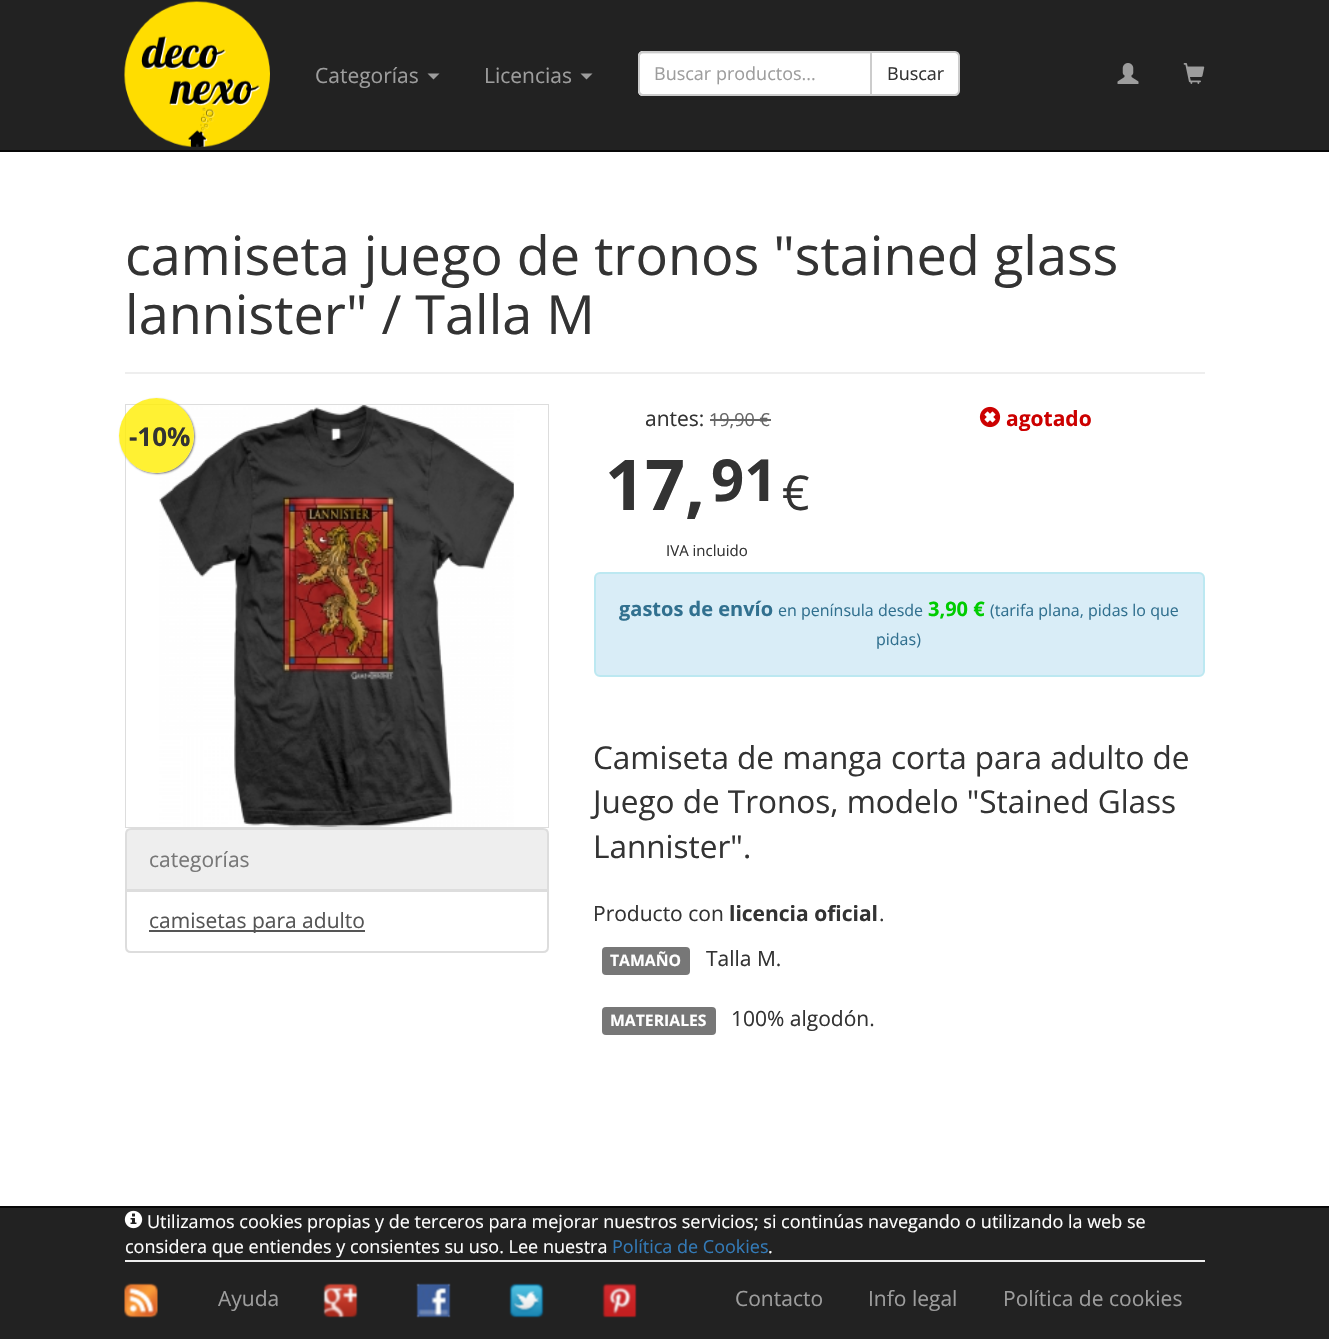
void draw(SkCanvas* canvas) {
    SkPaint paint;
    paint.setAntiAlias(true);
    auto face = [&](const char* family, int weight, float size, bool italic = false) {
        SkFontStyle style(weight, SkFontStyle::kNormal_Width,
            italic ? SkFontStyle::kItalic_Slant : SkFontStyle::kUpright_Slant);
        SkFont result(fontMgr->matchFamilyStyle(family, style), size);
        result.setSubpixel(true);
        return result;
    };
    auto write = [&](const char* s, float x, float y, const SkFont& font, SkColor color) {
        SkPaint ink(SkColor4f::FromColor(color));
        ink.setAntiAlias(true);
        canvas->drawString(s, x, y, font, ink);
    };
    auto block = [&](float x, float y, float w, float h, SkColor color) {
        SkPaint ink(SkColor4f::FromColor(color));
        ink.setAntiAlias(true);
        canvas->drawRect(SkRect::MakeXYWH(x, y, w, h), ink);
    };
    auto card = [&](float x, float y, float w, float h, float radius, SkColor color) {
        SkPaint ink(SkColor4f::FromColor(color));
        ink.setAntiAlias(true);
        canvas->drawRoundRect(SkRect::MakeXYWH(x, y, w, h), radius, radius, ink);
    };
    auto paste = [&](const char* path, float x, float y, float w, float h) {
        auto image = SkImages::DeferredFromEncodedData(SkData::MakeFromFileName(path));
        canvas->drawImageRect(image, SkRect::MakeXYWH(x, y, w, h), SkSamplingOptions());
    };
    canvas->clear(SK_ColorWHITE);
    block(0, 0, 1329, 150, SkColorSetRGB(34, 34, 34));
    block(0, 150, 1329, 2, SkColorSetRGB(8, 8, 8));
    paste("pic1.png", 124, 1, 146, 146);
    auto kFont1 = face("Open Sans", 400, 21);
    write("Categorías", 315, 83, kFont1, SkColorSetRGB(157, 157, 157));
    paint.setColor(SkColorSetRGB(157, 157, 157));
    canvas->drawPath(SkPathBuilder().moveTo(427.5f, 73.5f).lineTo(439.5f, 73.5f).lineTo(433.5f, 79.5f).close().detach(), paint);
    write("Licencias", 484, 83, kFont1, SkColorSetRGB(157, 157, 157));
    canvas->drawPath(SkPathBuilder().moveTo(580.5f, 73.5f).lineTo(592.5f, 73.5f).lineTo(586.5f, 79.5f).close().detach(), paint);
    paint.setColor(SK_ColorWHITE);
    canvas->drawPath(SkPathBuilder().moveTo(871, 52).lineTo(955, 52).cubicTo(957, 52, 959, 54, 959, 56).lineTo(959, 91).cubicTo(959, 93, 957, 95, 955, 95).lineTo(871, 95).close().detach(), paint);
    paint.setStyle(SkPaint::kStroke_Style);
    paint.setStrokeWidth(2);
    paint.setColor(SkColorSetRGB(204, 204, 204));
    canvas->drawPath(SkPathBuilder().moveTo(871, 52).lineTo(955, 52).cubicTo(957, 52, 959, 54, 959, 56).lineTo(959, 91).cubicTo(959, 93, 957, 95, 955, 95).lineTo(871, 95).close().detach(), paint);
    paint.setStyle(SkPaint::kFill_Style);
    paint.setColor(SK_ColorWHITE);
    canvas->drawPath(SkPathBuilder().moveTo(643, 51).lineTo(872, 51).lineTo(872, 96).lineTo(643, 96).cubicTo(640, 96, 638, 94, 638, 91).lineTo(638, 56).cubicTo(638, 53, 640, 51, 643, 51).close().detach(), paint);
    paint.setColor(SkColorSetRGB(236, 236, 236));
    canvas->drawPath(SkPathBuilder().moveTo(642, 54).lineTo(870, 54).lineTo(870, 53).lineTo(642, 53).cubicTo(640, 53, 639, 55, 639, 57).cubicTo(639, 55, 640, 54, 642, 54).close().detach(), paint);
    paint.setStyle(SkPaint::kStroke_Style);
    paint.setColor(SkColorSetRGB(204, 204, 204));
    canvas->drawPath(SkPathBuilder().moveTo(643, 52).lineTo(871, 52).lineTo(871, 95).lineTo(643, 95).cubicTo(641, 95, 639, 93, 639, 91).lineTo(639, 56).cubicTo(639, 54, 641, 52, 643, 52).close().detach(), paint);
    auto kFont2 = face("Open Sans", 400, 18);
    write("Buscar productos...", 654, 80, kFont2, SkColorSetRGB(157, 157, 157));
    write("Buscar", 887, 80, kFont2, SkColorSetRGB(51, 51, 51));
    paste("pic2.png", 1117, 63, 22, 21);
    paste("pic3.png", 1183, 63, 22, 21);
    block(125, 372, 1080, 2, SkColorSetRGB(238, 238, 238));
    auto kFont3 = face("Open Sans", 400, 54);
    write("camiseta juego de tronos \"stained glass", 125, 275, kFont3, SkColorSetRGB(51, 51, 51));
    write("lannister\" / Talla M", 125, 334, kFont3, SkColorSetRGB(51, 51, 51));
    paint.setColor(SkColorSetRGB(221, 221, 221));
    canvas->drawRect(SkRect::MakeXYWH(126, 405, 422, 422), paint);
    paste("pic4.png", 126, 405, 422, 422);
    canvas->save();
    canvas->clipPath(SkPathBuilder(SkPathFillType::kEvenOdd).moveTo(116, 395).lineTo(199, 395).lineTo(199, 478).lineTo(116, 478).close().moveTo(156.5f, 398).cubicTo(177, 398, 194, 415, 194, 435.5f).cubicTo(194, 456, 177, 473, 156.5f, 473).cubicTo(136, 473, 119, 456, 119, 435.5f).cubicTo(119, 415, 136, 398, 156.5f, 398).close().detach(), true);
    paint.setStyle(SkPaint::kFill_Style);
    paint.setColor(SkColorSetARGB(204, 94, 94, 94));
    paint.setMaskFilter(SkMaskFilter::MakeBlur(kNormal_SkBlurStyle, 1));
    canvas->drawRoundRect(SkRect::MakeXYWH(120, 399, 75, 75), 37.5f, 37.5f, paint);
    paint.setMaskFilter(nullptr);
    canvas->restore();
    paint.setColor(SkColorSetARGB(204, 255, 238, 0));
    canvas->drawCircle(156.5f, 435.5f, 37.5f, paint);
    auto kFont4 = face("Open Sans", 700, 26);
    write("-10%", 129, 446, kFont4, SkColorSetRGB(51, 51, 51));
    paint.setColor(SkColorSetRGB(238, 238, 238));
    canvas->drawPath(SkPathBuilder().moveTo(131, 829).lineTo(543, 829).cubicTo(546, 829, 548, 831, 548, 834).lineTo(548, 890).lineTo(126, 890).lineTo(126, 834).cubicTo(126, 831, 128, 829, 131, 829).close().detach(), paint);
    paint.setStyle(SkPaint::kStroke_Style);
    paint.setColor(SkColorSetRGB(221, 221, 221));
    canvas->drawPath(SkPathBuilder().moveTo(131, 829).lineTo(543, 829).cubicTo(546, 829, 548, 831, 548, 834).lineTo(548, 890).lineTo(126, 890).lineTo(126, 834).cubicTo(126, 831, 128, 829, 131, 829).close().detach(), paint);
    write("categorías", 149, 867, kFont1, SkColorSetRGB(119, 119, 119));
    paint.setStyle(SkPaint::kFill_Style);
    paint.setColor(SK_ColorWHITE);
    canvas->drawPath(SkPathBuilder().moveTo(126, 891).lineTo(548, 891).lineTo(548, 947).cubicTo(548, 950, 546, 952, 543, 952).lineTo(131, 952).cubicTo(128, 952, 126, 950, 126, 947).close().detach(), paint);
    paint.setStyle(SkPaint::kStroke_Style);
    paint.setColor(SkColorSetRGB(221, 221, 221));
    canvas->drawPath(SkPathBuilder().moveTo(126, 891).lineTo(548, 891).lineTo(548, 947).cubicTo(548, 950, 546, 952, 543, 952).lineTo(131, 952).cubicTo(128, 952, 126, 950, 126, 947).close().detach(), paint);
    block(149, 930, 216, 2, SkColorSetRGB(85, 85, 85));
    write("camisetas para adulto", 149, 928, kFont1, SkColorSetRGB(85, 85, 85));
    write("antes:", 645, 426, kFont1, SkColorSetRGB(51, 51, 51));
    write("19,90 €", 709, 426, kFont2, SkColorSetRGB(102, 102, 102));
    block(710, 419, 61, 2, SkColorSetRGB(102, 102, 102));
    auto kFont5 = face("Open Sans", 700, 70);
    write("17,", 605, 510, kFont5, SkColorSetRGB(51, 51, 51));
    auto kFont6 = face("Open Sans", 700, 58);
    write("91", 711, 501, kFont6, SkColorSetRGB(51, 51, 51));
    auto kFont7 = face("Open Sans", 400, 48);
    write("€", 782, 510, kFont7, SkColorSetRGB(51, 51, 51));
    auto kFont8 = face("Open Sans", 400, 15);
    write("IVA incluido", 666, 556, kFont8, SkColorSetRGB(51, 51, 51));
    paste("pic5.png", 979, 406, 22, 22);
    auto kFont9 = face("Open Sans", 700, 21);
    write("agotado", 1006, 426, kFont9, SkColorSetRGB(204, 0, 0));
    paint.setStyle(SkPaint::kFill_Style);
    paint.setColor(SkColorSetRGB(217, 237, 247));
    canvas->drawRoundRect(SkRect::MakeXYWH(595, 573, 609, 103), 5, 5, paint);
    paint.setStyle(SkPaint::kStroke_Style);
    paint.setColor(SkColorSetRGB(188, 232, 241));
    canvas->drawRoundRect(SkRect::MakeXYWH(595, 573, 609, 103), 5, 5, paint);
    auto kFont10 = face("Open Sans", 700, 20);
    write("gastos de envío", 619, 616, kFont10, SkColorSetRGB(49, 112, 143));
    auto kFont11 = face("Open Sans", 400, 16);
    write("en península desde", 778, 616, kFont11, SkColorSetRGB(49, 112, 143));
    write("3,90 €", 928, 616, kFont10, SkColorSetRGB(0, 204, 0));
    write("(tarifa plana, pidas lo que", 990, 616, kFont11, SkColorSetRGB(49, 112, 143));
    write("pidas)", 876, 645, kFont11, SkColorSetRGB(49, 112, 143));
    auto kFont12 = face("Open Sans", 400, 31.5f);
    write("Camiseta de manga corta para adulto de", 593, 769, kFont12, SkColorSetRGB(51, 51, 51));
    write("Juego de Tronos, modelo \"Stained Glass", 593, 813, kFont12, SkColorSetRGB(51, 51, 51));
    write("Lannister\".", 593, 858, kFont12, SkColorSetRGB(51, 51, 51));
    write("Producto con", 593, 921, kFont1, SkColorSetRGB(51, 51, 51));
    write("licencia oficial", 729, 921, kFont9, SkColorSetRGB(51, 51, 51));
    write(".", 879, 921, kFont1, SkColorSetRGB(51, 51, 51));
    card(602, 947, 88, 28, 4, SkColorSetRGB(119, 119, 119));
    auto kFont13 = face("Open Sans", 700, 15.75f);
    write("TAMAÑO", 610, 966, kFont13, SK_ColorWHITE);
    write("Talla M.", 706, 966, kFont1, SkColorSetRGB(51, 51, 51));
    card(602, 1007, 114, 28, 4, SkColorSetRGB(119, 119, 119));
    write("MATERIALES", 610, 1026, kFont13, SK_ColorWHITE);
    write("100% algodón.", 731, 1026, kFont1, SkColorSetRGB(51, 51, 51));
    block(0, 1208, 1329, 131, SkColorSetRGB(34, 34, 34));
    block(0, 1206, 1329, 2, SkColorSetRGB(8, 8, 8));
    block(125, 1260, 1080, 2, SkColorSetRGB(238, 238, 238));
    paste("pic6.png", 124, 1210, 19, 19);
    write("Utilizamos cookies propias y de terceros para mejorar nuestros servicios; si continúas navegando o utilizando la web se", 147, 1228, kFont2, SK_ColorWHITE);
    write("considera que entiendes y consientes su uso. Lee nuestra", 125, 1253, kFont2, SK_ColorWHITE);
    write("Política de Cookies", 612, 1253, kFont2, SkColorSetRGB(51, 122, 183));
    write(".", 768, 1253, kFont2, SK_ColorWHITE);
    paste("pic7.png", 124, 1283, 34, 35);
    write("Ayuda", 218, 1306, kFont1, SkColorSetRGB(157, 157, 157));
    paste("pic8.png", 323, 1283, 35, 35);
    paste("pic9.png", 416, 1283, 35, 35);
    paste("pic10.png", 509, 1283, 35, 35);
    paste("pic11.png", 602, 1283, 35, 35);
    write("Contacto", 735, 1306, kFont1, SkColorSetRGB(157, 157, 157));
    write("Info legal", 868, 1306, kFont1, SkColorSetRGB(157, 157, 157));
    write("Política de cookies", 1003, 1306, kFont1, SkColorSetRGB(157, 157, 157));
}
